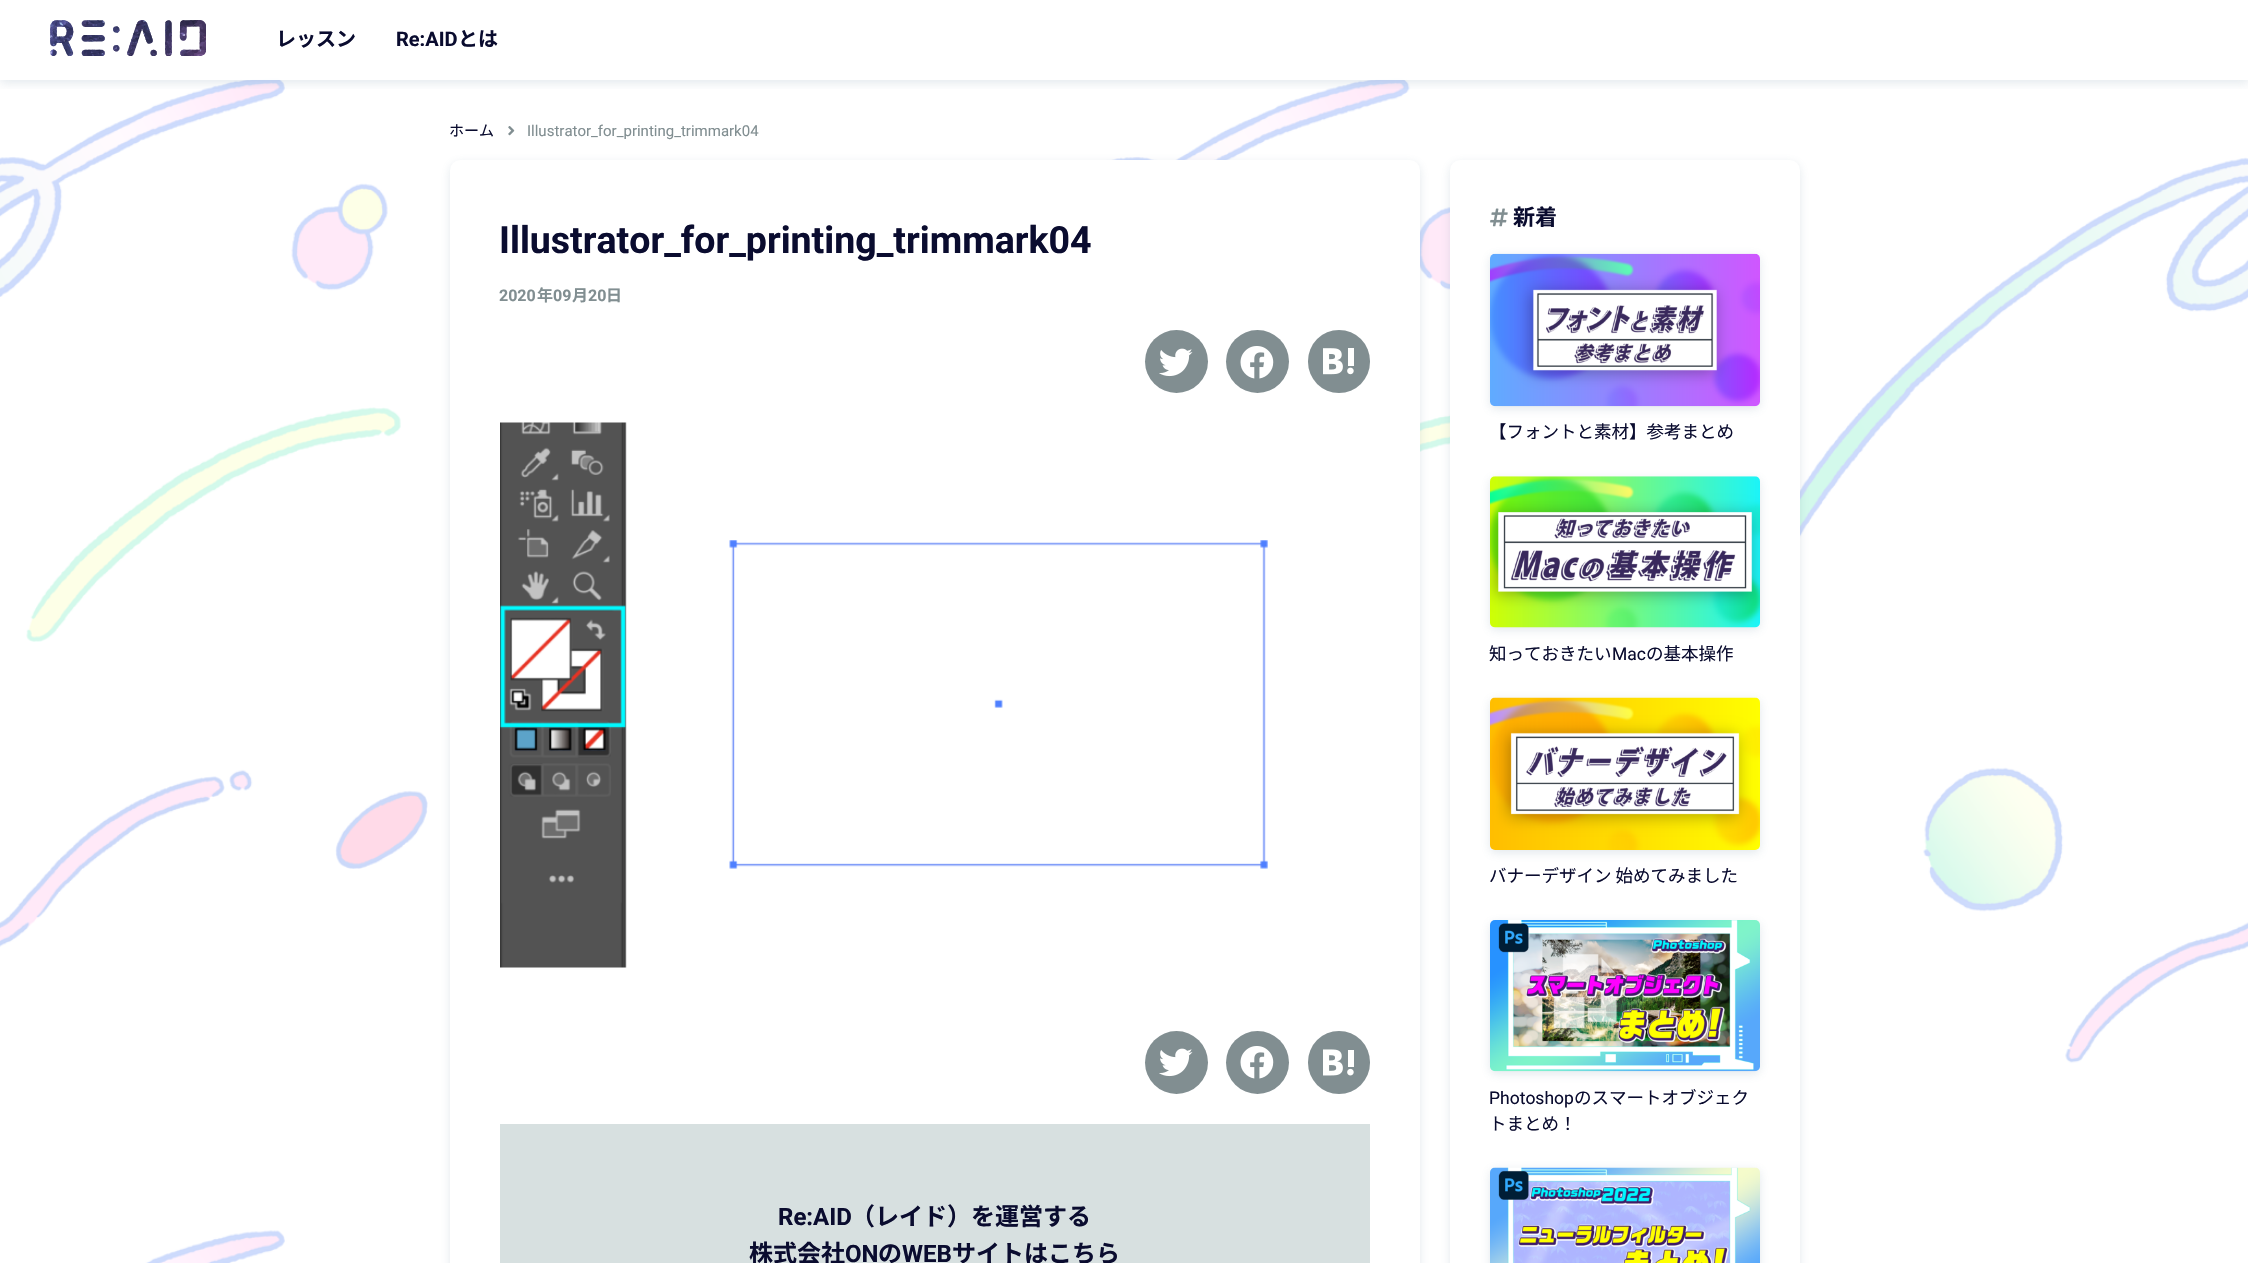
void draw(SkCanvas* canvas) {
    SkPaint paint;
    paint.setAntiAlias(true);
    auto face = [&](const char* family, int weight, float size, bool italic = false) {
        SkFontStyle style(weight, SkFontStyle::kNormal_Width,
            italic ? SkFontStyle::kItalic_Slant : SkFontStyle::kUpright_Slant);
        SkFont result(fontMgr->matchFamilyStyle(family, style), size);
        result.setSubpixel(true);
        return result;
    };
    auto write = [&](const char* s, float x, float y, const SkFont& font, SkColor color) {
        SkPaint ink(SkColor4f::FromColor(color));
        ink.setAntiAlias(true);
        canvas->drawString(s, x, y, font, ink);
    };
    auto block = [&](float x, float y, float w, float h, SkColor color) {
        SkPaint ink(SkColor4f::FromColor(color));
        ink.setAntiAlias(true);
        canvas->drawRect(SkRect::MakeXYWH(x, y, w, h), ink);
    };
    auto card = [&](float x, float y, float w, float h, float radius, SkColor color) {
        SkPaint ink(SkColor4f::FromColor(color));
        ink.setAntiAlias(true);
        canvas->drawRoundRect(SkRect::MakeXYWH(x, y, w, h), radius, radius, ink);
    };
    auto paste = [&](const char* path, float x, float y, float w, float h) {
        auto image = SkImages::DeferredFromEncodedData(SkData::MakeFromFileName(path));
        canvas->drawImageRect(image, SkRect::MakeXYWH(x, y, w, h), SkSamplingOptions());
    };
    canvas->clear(SK_ColorWHITE);
    paste("pic1.png", 0, 77, 2248, 1186);
    canvas->save();
    canvas->clipRect(SkRect::MakeXYWH(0, 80, 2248, 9));
    paint.setColor(SkColorSetARGB(46, 99, 133, 153));
    paint.setMaskFilter(SkMaskFilter::MakeBlur(kNormal_SkBlurStyle, 5));
    canvas->drawRect(SkRect::MakeXYWH(0, 3, 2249, 80), paint);
    paint.setMaskFilter(nullptr);
    canvas->restore();
    block(242, 77, 1164, 3, SkColorSetARGB(242, 255, 255, 255));
    paste("pic2.png", 50, 20, 156, 36);
    auto kFont1 = face("Noto Sans JP", 700, 20);
    write("レッスン", 276, 46, kFont1, SkColorSetRGB(10, 12, 47));
    auto kFont2 = face("Roboto", 700, 20);
    write("Re:AID", 396, 46, kFont2, SkColorSetRGB(10, 12, 47));
    write("とは", 458, 46, kFont1, SkColorSetRGB(10, 12, 47));
    auto kFont3 = face("Noto Sans JP", 400, 15);
    write("ホーム", 449, 136, kFont3, SkColorSetRGB(10, 12, 47));
    paste("pic3.png", 508, 126, 7, 10);
    auto kFont4 = face("Roboto", 400, 15);
    write("Illustrator_for_printing_trimmark04", 527, 136, kFont4, SkColorSetRGB(129, 142, 145));
    paint.setMaskFilter(SkMaskFilter::MakeBlur(kNormal_SkBlurStyle, 5));
    canvas->drawRoundRect(SkRect::MakeXYWH(450, 163, 970, 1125), 10, 10, paint);
    paint.setMaskFilter(nullptr);
    card(450, 160, 970, 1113, 10, SK_ColorWHITE);
    auto kFont5 = face("Roboto", 700, 37.5f);
    write("Illustrator_for_printing_trimmark04", 499, 253, kFont5, SkColorSetRGB(10, 12, 47));
    auto kFont6 = face("Roboto", 700, 16);
    write("2020", 499, 301, kFont6, SkColorSetRGB(129, 142, 145));
    auto kFont7 = face("Noto Sans JP", 700, 16);
    write("年", 537, 301, kFont7, SkColorSetRGB(129, 142, 145));
    write("09", 553, 301, kFont6, SkColorSetRGB(129, 142, 145));
    write("月", 572, 301, kFont7, SkColorSetRGB(129, 142, 145));
    write("20", 588, 301, kFont6, SkColorSetRGB(129, 142, 145));
    write("日", 606, 301, kFont7, SkColorSetRGB(129, 142, 145));
    paint.setColor(SkColorSetRGB(129, 142, 145));
    canvas->drawCircle(1176.5f, 361.5f, 31.5f, paint);
    paste("pic4.png", 1159, 348, 34, 29);
    canvas->drawCircle(1257.5f, 361.5f, 31.5f, paint);
    paste("pic5.png", 1240, 346, 34, 33);
    card(1308, 330, 62, 63, 31, SkColorSetRGB(129, 142, 145));
    paste("pic6.png", 1323, 348, 31, 27);
    paste("pic7.png", 500, 422, 768, 546);
    canvas->drawCircle(1176.5f, 1062.5f, 31.5f, paint);
    paste("pic4.png", 1159, 1048, 34, 29);
    canvas->drawCircle(1257.5f, 1062.5f, 31.5f, paint);
    paste("pic5.png", 1240, 1046, 34, 33);
    card(1308, 1031, 62, 63, 31, SkColorSetRGB(129, 142, 145));
    paste("pic8.png", 1323, 1049, 31, 27);
    block(500, 1124, 870, 139, SkColorSetRGB(215, 224, 224));
    auto kFont8 = face("Roboto", 700, 24);
    write("Re:AID", 778, 1225, kFont8, SkColorSetRGB(10, 12, 47));
    auto kFont9 = face("Noto Sans JP", 700, 24);
    write("（レイド）を運営する", 851, 1225, kFont9, SkColorSetRGB(10, 12, 47));
    write("株式会社", 749, 1262, kFont9, SkColorSetRGB(10, 12, 47));
    write("ON", 845, 1262, kFont8, SkColorSetRGB(10, 12, 47));
    write("の", 878, 1262, kFont9, SkColorSetRGB(10, 12, 47));
    write("WEB", 902, 1262, kFont8, SkColorSetRGB(10, 12, 47));
    write("サイトはこちら", 952, 1262, kFont9, SkColorSetRGB(10, 12, 47));
    paint.setColor(SkColorSetARGB(46, 99, 133, 153));
    paint.setMaskFilter(SkMaskFilter::MakeBlur(kNormal_SkBlurStyle, 5));
    canvas->drawRoundRect(SkRect::MakeXYWH(1450, 163, 350, 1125), 10, 10, paint);
    paint.setMaskFilter(nullptr);
    card(1450, 160, 350, 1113, 10, SK_ColorWHITE);
    paste("pic9.png", 1490, 208, 18, 19);
    auto kFont10 = face("Noto Sans JP", 700, 22);
    write("新着", 1513, 225, kFont10, SkColorSetRGB(10, 12, 47));
    paint.setMaskFilter(SkMaskFilter::MakeBlur(kNormal_SkBlurStyle, 5));
    canvas->drawRoundRect(SkRect::MakeXYWH(1490, 256, 270, 153), 5, 5, paint);
    paint.setMaskFilter(nullptr);
    paste("pic10.png", 1490, 253, 270, 154);
    auto kFont11 = face("Noto Sans JP", 400, 17.5f);
    write("【フォントと素材】参考まとめ", 1489, 438, kFont11, SkColorSetRGB(10, 12, 47));
    paint.setMaskFilter(SkMaskFilter::MakeBlur(kNormal_SkBlurStyle, 5));
    canvas->drawRoundRect(SkRect::MakeXYWH(1490, 479, 270, 151), 5, 5, paint);
    paint.setMaskFilter(nullptr);
    paste("pic11.png", 1490, 476, 270, 152);
    write("知っておきたい", 1489, 660, kFont11, SkColorSetRGB(10, 12, 47));
    auto kFont12 = face("Roboto", 400, 17.5f);
    write("Mac", 1612, 660, kFont12, SkColorSetRGB(10, 12, 47));
    write("の基本操作", 1646, 660, kFont11, SkColorSetRGB(10, 12, 47));
    paint.setMaskFilter(SkMaskFilter::MakeBlur(kNormal_SkBlurStyle, 5));
    canvas->drawRoundRect(SkRect::MakeXYWH(1490, 700, 270, 153), 5, 5, paint);
    paint.setMaskFilter(nullptr);
    paste("pic12.png", 1490, 697, 270, 153);
    write("バナーデザイン 始めてみました", 1489, 882, kFont11, SkColorSetRGB(10, 12, 47));
    paint.setMaskFilter(SkMaskFilter::MakeBlur(kNormal_SkBlurStyle, 5));
    canvas->drawRoundRect(SkRect::MakeXYWH(1490, 923, 270, 151), 5, 5, paint);
    paint.setMaskFilter(nullptr);
    paste("pic13.png", 1490, 920, 270, 152);
    write("Photoshop", 1489, 1104, kFont12, SkColorSetRGB(10, 12, 47));
    write("のスマートオブジェク", 1574, 1104, kFont11, SkColorSetRGB(10, 12, 47));
    write("トまとめ！", 1489, 1130, kFont11, SkColorSetRGB(10, 12, 47));
    paint.setMaskFilter(SkMaskFilter::MakeBlur(kNormal_SkBlurStyle, 5));
    canvas->drawRoundRect(SkRect::MakeXYWH(1490, 1170, 270, 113), 5, 5, paint);
    paint.setMaskFilter(nullptr);
    paste("pic14.png", 1490, 1167, 270, 96);
}
